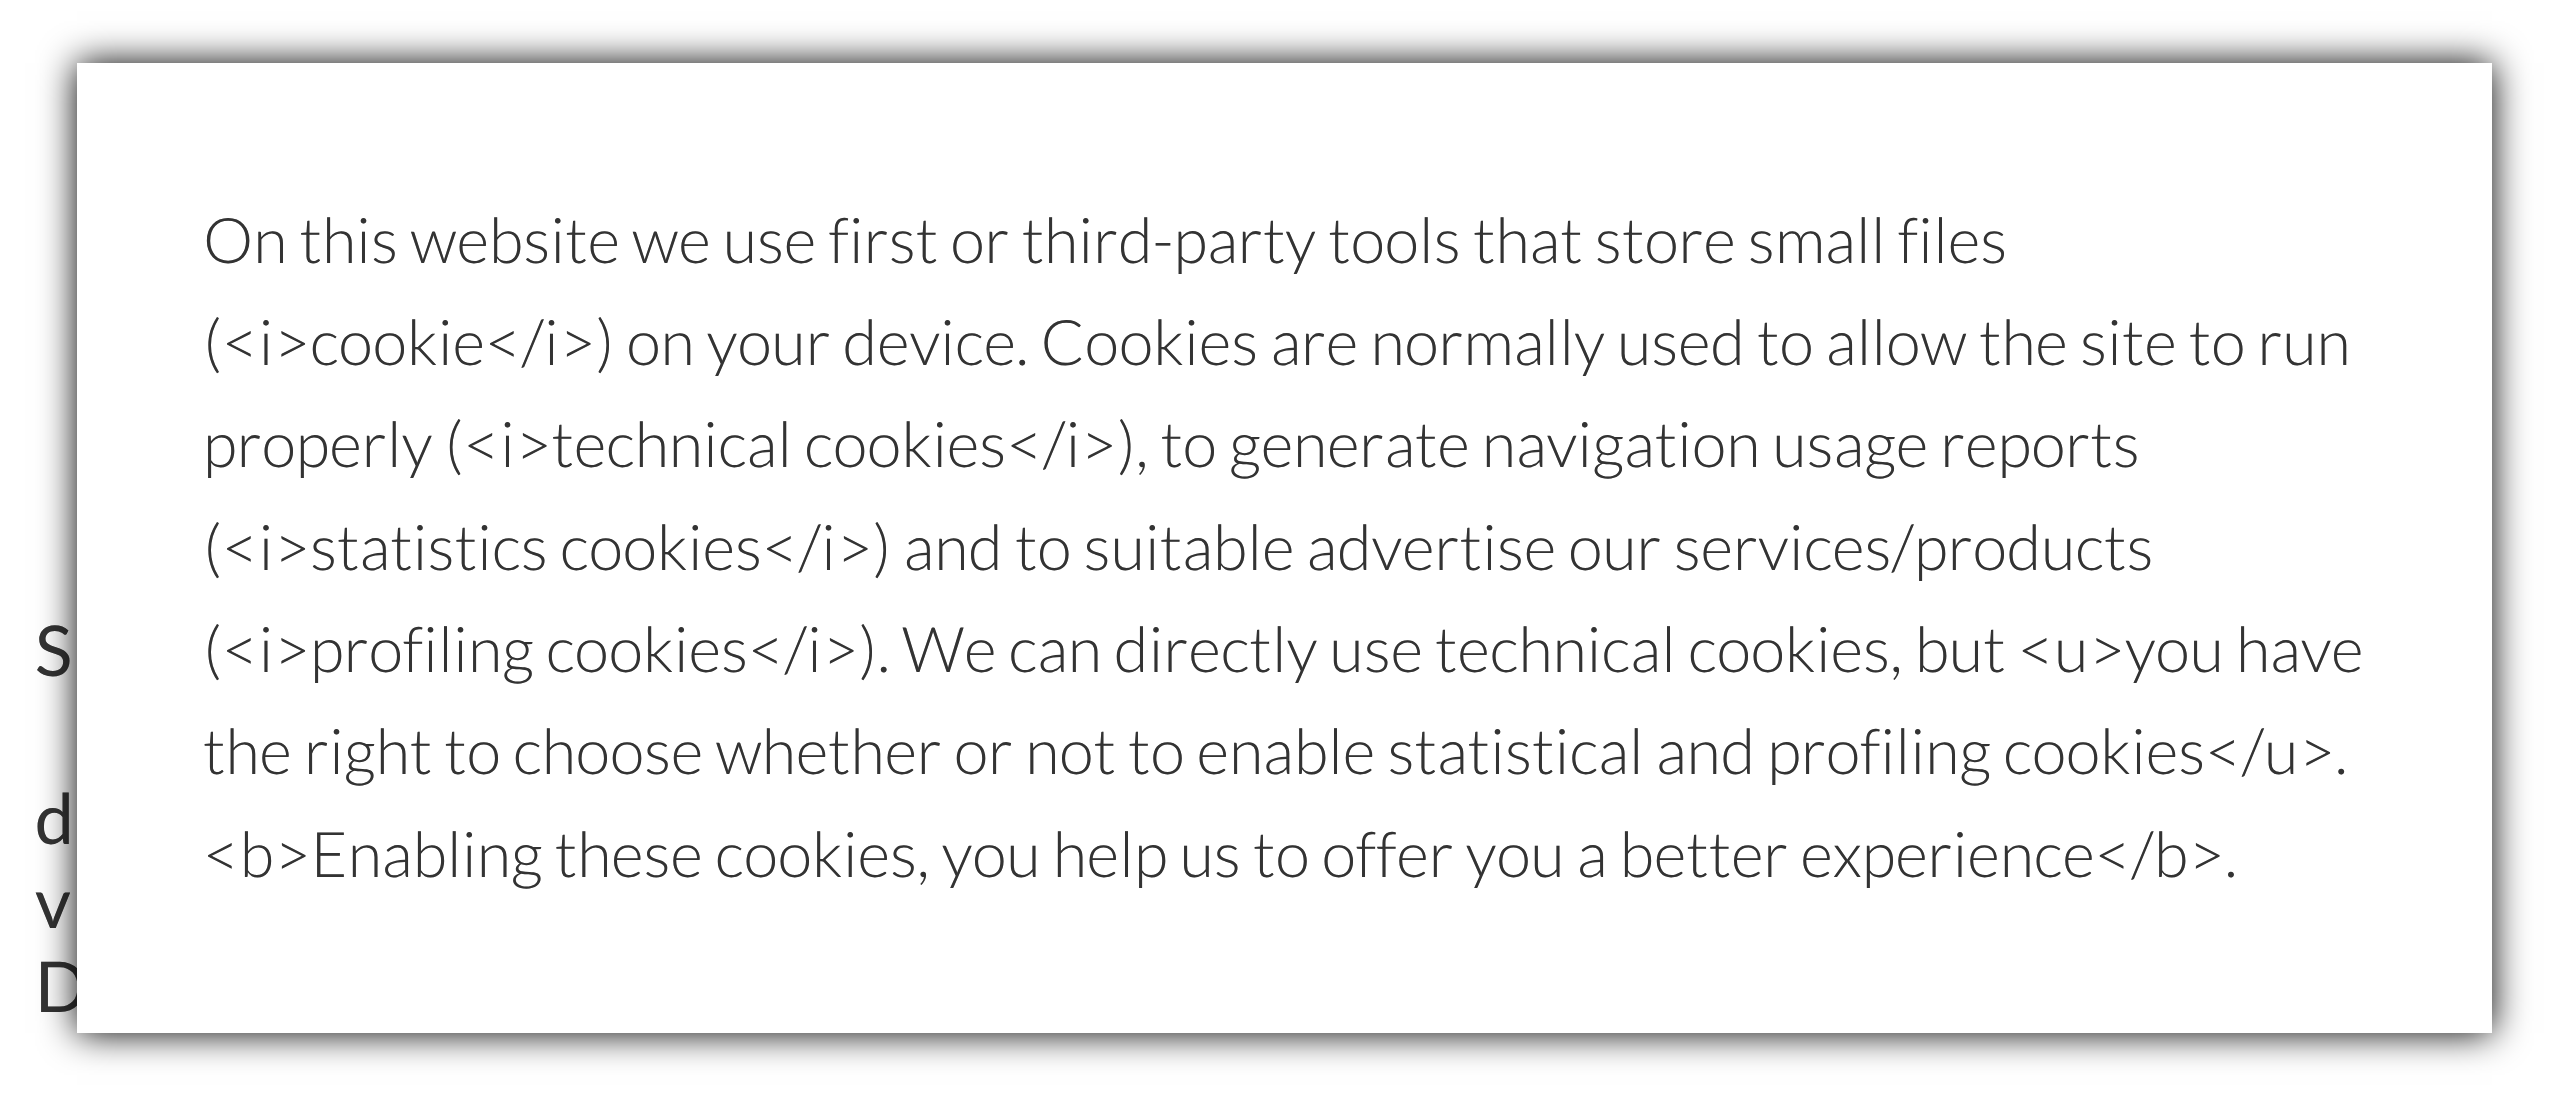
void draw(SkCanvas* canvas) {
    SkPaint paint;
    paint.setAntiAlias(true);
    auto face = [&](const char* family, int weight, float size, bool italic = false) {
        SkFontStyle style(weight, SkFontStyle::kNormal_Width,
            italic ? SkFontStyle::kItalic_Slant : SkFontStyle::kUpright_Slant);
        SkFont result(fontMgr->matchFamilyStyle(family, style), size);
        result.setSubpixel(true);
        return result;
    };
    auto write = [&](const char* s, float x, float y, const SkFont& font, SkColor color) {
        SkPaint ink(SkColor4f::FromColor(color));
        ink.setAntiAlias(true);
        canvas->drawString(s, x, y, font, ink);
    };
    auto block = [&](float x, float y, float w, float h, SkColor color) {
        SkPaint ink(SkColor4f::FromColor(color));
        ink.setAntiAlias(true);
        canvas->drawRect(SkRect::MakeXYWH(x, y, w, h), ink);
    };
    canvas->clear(SK_ColorWHITE);
    auto kFont1 = face("Lato", 400, 70);
    write("S", 35, 676, kFont1, SkColorSetRGB(51, 51, 51));
    write("d", 35, 844, kFont1, SkColorSetRGB(51, 51, 51));
    write("v", 35, 928, kFont1, SkColorSetRGB(51, 51, 51));
    write("D", 35, 1012, kFont1, SkColorSetRGB(51, 51, 51));
    paint.setColor(SK_ColorBLACK);
    paint.setMaskFilter(SkMaskFilter::MakeBlur(kNormal_SkBlurStyle, 17.5f));
    canvas->drawRect(SkRect::MakeXYWH(77, 63, 2415, 970), paint);
    paint.setMaskFilter(nullptr);
    block(77, 63, 2415, 970, SK_ColorWHITE);
    auto kFont2 = face("Lato", 300, 63);
    write("On this website we use first or third-party tools that store small files", 203, 263, kFont2, SkColorSetRGB(51, 51, 51));
    write("(<i>cookie</i>) on your device. Cookies are normally used to allow the site to run", 203, 365, kFont2, SkColorSetRGB(51, 51, 51));
    write("properly (<i>technical cookies</i>), to generate navigation usage reports", 203, 467, kFont2, SkColorSetRGB(51, 51, 51));
    write("(<i>statistics cookies</i>) and to suitable advertise our services/products", 203, 570, kFont2, SkColorSetRGB(51, 51, 51));
    write("(<i>profiling cookies</i>). We can directly use technical cookies, but <u>you have", 203, 672, kFont2, SkColorSetRGB(51, 51, 51));
    write("the right to choose whether or not to enable statistical and profiling cookies</u>.", 203, 774, kFont2, SkColorSetRGB(51, 51, 51));
    write("<b>Enabling these cookies, you help us to offer you a better experience</b>.", 203, 877, kFont2, SkColorSetRGB(51, 51, 51));
}
